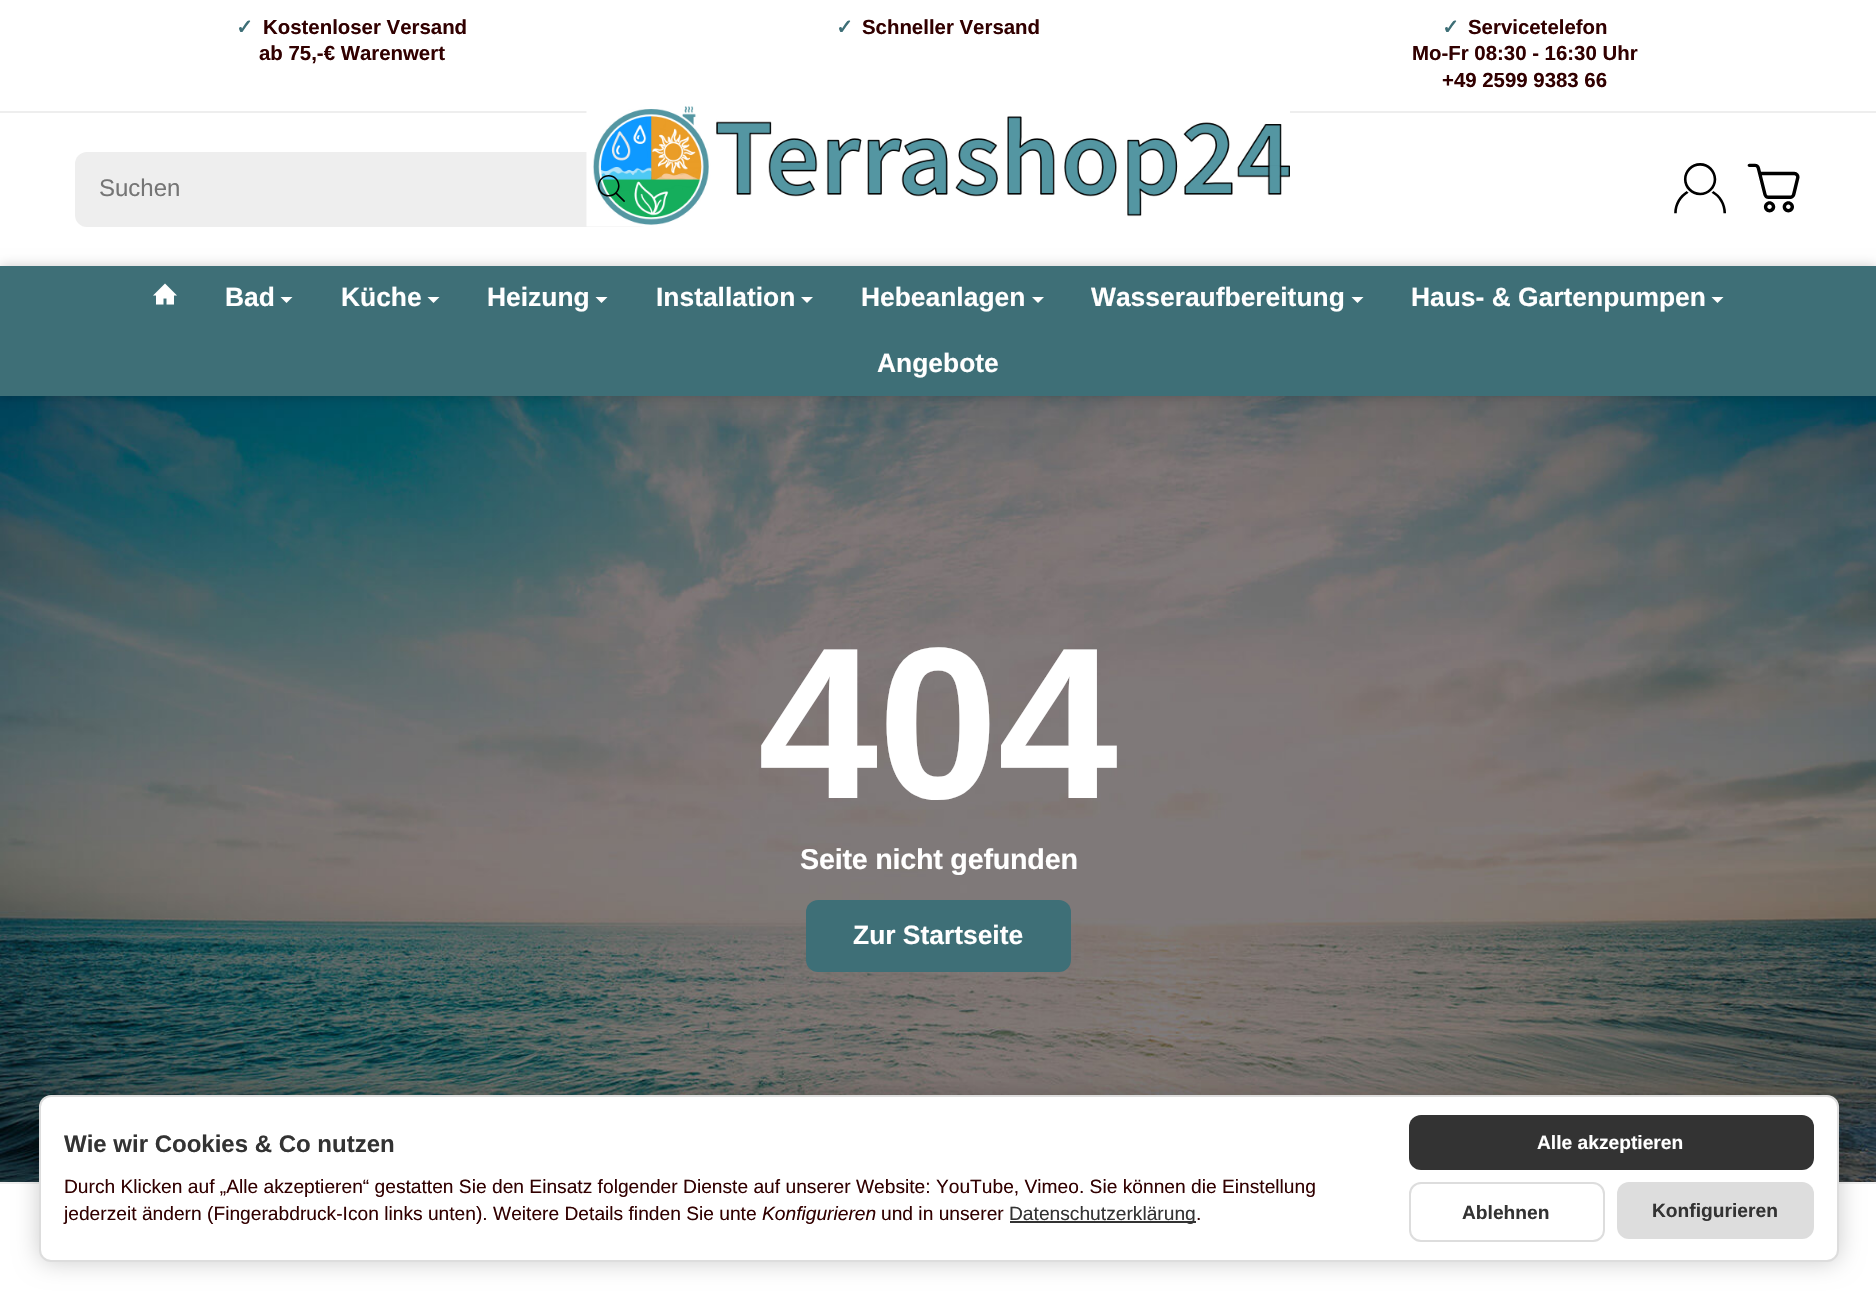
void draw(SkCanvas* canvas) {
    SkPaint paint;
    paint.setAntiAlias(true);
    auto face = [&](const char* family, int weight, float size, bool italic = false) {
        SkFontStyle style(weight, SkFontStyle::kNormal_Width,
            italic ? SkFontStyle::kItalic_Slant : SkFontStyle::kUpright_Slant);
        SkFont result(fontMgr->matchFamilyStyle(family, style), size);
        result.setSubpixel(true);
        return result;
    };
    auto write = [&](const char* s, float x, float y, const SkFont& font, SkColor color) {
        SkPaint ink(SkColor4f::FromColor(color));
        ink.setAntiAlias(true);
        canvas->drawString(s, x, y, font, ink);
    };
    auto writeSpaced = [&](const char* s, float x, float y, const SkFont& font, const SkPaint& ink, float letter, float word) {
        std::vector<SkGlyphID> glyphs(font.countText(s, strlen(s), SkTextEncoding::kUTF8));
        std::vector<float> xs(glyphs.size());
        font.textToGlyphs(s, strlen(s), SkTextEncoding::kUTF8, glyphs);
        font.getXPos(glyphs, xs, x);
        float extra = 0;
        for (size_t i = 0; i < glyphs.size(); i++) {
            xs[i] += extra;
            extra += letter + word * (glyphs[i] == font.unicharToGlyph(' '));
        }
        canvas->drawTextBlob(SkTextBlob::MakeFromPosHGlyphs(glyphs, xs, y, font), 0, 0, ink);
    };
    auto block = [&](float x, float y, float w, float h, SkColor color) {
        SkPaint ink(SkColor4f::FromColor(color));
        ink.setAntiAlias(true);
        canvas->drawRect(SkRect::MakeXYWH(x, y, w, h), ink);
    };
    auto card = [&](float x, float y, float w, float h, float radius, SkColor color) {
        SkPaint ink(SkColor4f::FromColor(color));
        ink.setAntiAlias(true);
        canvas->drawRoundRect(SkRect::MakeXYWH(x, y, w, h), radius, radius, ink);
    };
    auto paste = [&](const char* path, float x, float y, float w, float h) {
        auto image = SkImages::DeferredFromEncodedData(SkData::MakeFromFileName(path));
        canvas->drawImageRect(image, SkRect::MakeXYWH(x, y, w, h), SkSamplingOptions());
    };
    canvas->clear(SK_ColorWHITE);
    auto kFont1 = face("DejaVu Sans", 700, 20.4f);
    write("✓", 236, 34, kFont1, SkColorSetRGB(62, 111, 119));
    auto kFont2 = face("Liberation Sans", 700, 20.4f);
    write("Kostenloser Versand", 263, 34, kFont2, SkColorSetRGB(49, 0, 0));
    write("ab 75,-€ Warenwert", 259, 60, kFont2, SkColorSetRGB(49, 0, 0));
    write("✓", 836, 34, kFont1, SkColorSetRGB(62, 111, 119));
    write("Schneller Versand", 862, 34, kFont2, SkColorSetRGB(49, 0, 0));
    write("✓", 1442, 34, kFont1, SkColorSetRGB(62, 111, 119));
    write("Servicetelefon", 1468, 34, kFont2, SkColorSetRGB(49, 0, 0));
    write("Mo-Fr 08:30 - 16:30 Uhr", 1412, 60, kFont2, SkColorSetRGB(49, 0, 0));
    write("+49 2599 9383 66", 1442, 87, kFont2, SkColorSetRGB(49, 0, 0));
    block(0, 111, 1876, 2, SkColorSetRGB(238, 238, 238));
    card(75, 152, 576, 75, 12, SkColorSetRGB(238, 238, 238));
    auto kFont3 = face("Liberation Sans", 400, 24);
    write("Suchen", 99, 196, kFont3, SkColorSetRGB(117, 117, 117));
    paste("pic2.png", 586, 106, 704, 121);
    paste("pic1.png", 597, 175, 28, 27);
    paste("pic3.png", 1674, 163, 52, 51);
    paste("pic4.png", 1747, 163, 53, 50);
    paste("pic6.png", 0, 396, 1876, 786);
    paint.setColor(SkColorSetARGB(51, 0, 0, 0));
    paint.setMaskFilter(SkMaskFilter::MakeBlur(kNormal_SkBlurStyle, 6));
    canvas->drawRect(SkRect::MakeXYWH(0, 266, 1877, 130), paint);
    paint.setMaskFilter(nullptr);
    block(0, 266, 1876, 130, SkColorSetRGB(62, 111, 119));
    paste("pic5.png", 153, 283, 24, 22);
    auto kFont4 = face("Liberation Sans", 700, 26.4f);
    write("Bad", 225, 306, kFont4, SK_ColorWHITE);
    paint.setColor(SK_ColorWHITE);
    canvas->drawPath(SkPathBuilder().moveTo(280.5f, 297).lineTo(292.5f, 297).lineTo(286.5f, 303).close().detach(), paint);
    write("Küche", 341, 306, kFont4, SK_ColorWHITE);
    canvas->drawPath(SkPathBuilder().moveTo(427.5f, 297).lineTo(439.5f, 297).lineTo(433.5f, 303).close().detach(), paint);
    write("Heizung", 487, 306, kFont4, SK_ColorWHITE);
    canvas->drawPath(SkPathBuilder().moveTo(595.5f, 297).lineTo(607.5f, 297).lineTo(601.5f, 303).close().detach(), paint);
    write("Installation", 656, 306, kFont4, SK_ColorWHITE);
    canvas->drawPath(SkPathBuilder().moveTo(801, 297).lineTo(813, 297).lineTo(807, 303).close().detach(), paint);
    write("Hebeanlagen", 861, 306, kFont4, SK_ColorWHITE);
    canvas->drawPath(SkPathBuilder().moveTo(1032, 297).lineTo(1044, 297).lineTo(1038, 303).close().detach(), paint);
    write("Wasseraufbereitung", 1091, 306, kFont4, SK_ColorWHITE);
    canvas->drawPath(SkPathBuilder().moveTo(1351.5f, 297).lineTo(1363.5f, 297).lineTo(1357.5f, 303).close().detach(), paint);
    write("Haus- & Gartenpumpen", 1411, 306, kFont4, SK_ColorWHITE);
    canvas->drawPath(SkPathBuilder().moveTo(1711.5f, 297).lineTo(1723.5f, 297).lineTo(1717.5f, 303).close().detach(), paint);
    write("Angebote", 877, 372, kFont4, SK_ColorWHITE);
    auto kFont5 = face("Liberation Sans", 700, 216);
    writeSpaced("404", 758, 798, kFont5, paint, -0.25f, 0);
    auto kFont6 = face("Liberation Sans", 700, 28.75f);
    writeSpaced("Seite nicht gefunden", 800, 869, kFont6, paint, -0.25f, 0);
    card(806, 900, 265, 72, 12, SkColorSetRGB(62, 111, 119));
    write("Zur Startseite", 853, 944, kFont4, SK_ColorWHITE);
    block(0, 1182, 1876, 2, SkColorSetRGB(238, 238, 238));
    paint.setColor(SkColorSetARGB(51, 0, 0, 0));
    paint.setMaskFilter(SkMaskFilter::MakeBlur(kNormal_SkBlurStyle, 12));
    canvas->drawRoundRect(SkRect::MakeXYWH(39, 1095, 1800, 167), 12, 12, paint);
    paint.setMaskFilter(nullptr);
    paint.setColor(SK_ColorWHITE);
    canvas->drawRoundRect(SkRect::MakeXYWH(40, 1096, 1798, 165), 11, 11, paint);
    paint.setStyle(SkPaint::kStroke_Style);
    paint.setStrokeWidth(2);
    paint.setColor(SkColorSetRGB(221, 221, 221));
    canvas->drawRoundRect(SkRect::MakeXYWH(40, 1096, 1798, 165), 11, 11, paint);
    auto kFont7 = face("Liberation Sans", 700, 24);
    write("Wie wir Cookies & Co nutzen", 64, 1152, kFont7, SkColorSetRGB(51, 51, 51));
    auto kFont8 = face("Liberation Sans", 400, 19.2f);
    write("Durch Klicken auf „Alle akzeptieren“ gestatten Sie den Einsatz folgender Dienste auf unserer Website: YouTube, Vimeo. Sie können die Einstellung", 64, 1193, kFont8, SkColorSetRGB(49, 0, 0));
    write("jederzeit ändern (Fingerabdruck-Icon links unten). Weitere Details finden Sie unte", 64, 1220, kFont8, SkColorSetRGB(49, 0, 0));
    auto kFont9 = face("Liberation Sans", 400, 19.2f, true);
    write("Konfigurieren", 762, 1220, kFont9, SkColorSetRGB(49, 0, 0));
    write("und in unserer", 881, 1220, kFont8, SkColorSetRGB(49, 0, 0));
    block(1010, 1221, 186, 2, SkColorSetRGB(51, 51, 51));
    write("Datenschutzerklärung", 1009, 1220, kFont8, SkColorSetRGB(51, 51, 51));
    write(".", 1196, 1220, kFont8, SkColorSetRGB(49, 0, 0));
    card(1409, 1115, 405, 55, 12, SkColorSetRGB(51, 51, 51));
    auto kFont10 = face("Liberation Sans", 700, 19.2f);
    write("Alle akzeptieren", 1537, 1149, kFont10, SK_ColorWHITE);
    canvas->drawRoundRect(SkRect::MakeXYWH(1410, 1183, 194, 58), 11, 11, paint);
    write("Ablehnen", 1462, 1219, kFont10, SkColorSetRGB(51, 51, 51));
    card(1617, 1182, 197, 57, 12, SkColorSetRGB(221, 221, 221));
    write("Konfigurieren", 1652, 1217, kFont10, SkColorSetRGB(51, 51, 51));
}
